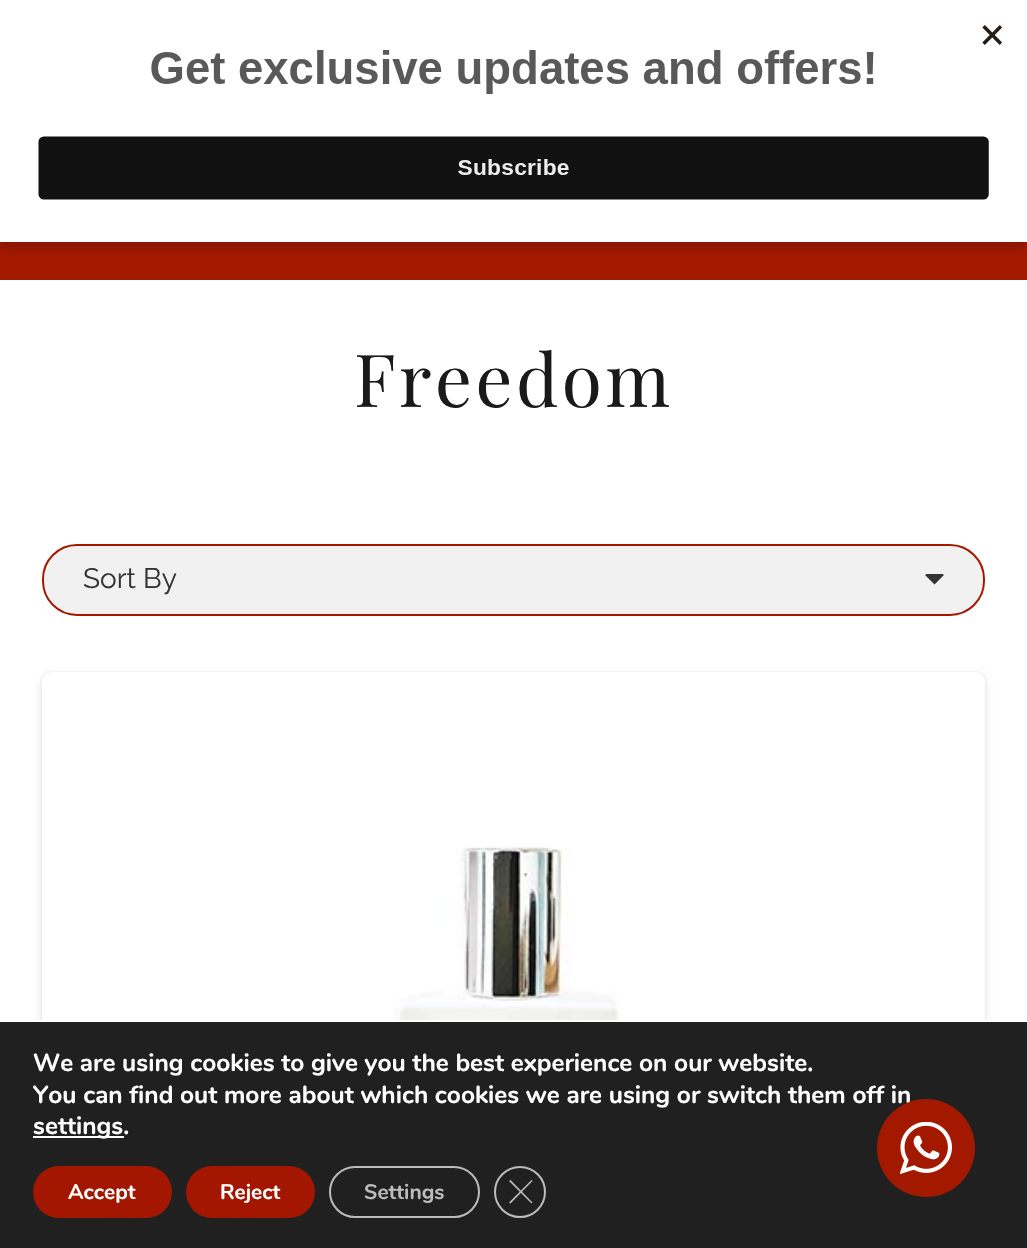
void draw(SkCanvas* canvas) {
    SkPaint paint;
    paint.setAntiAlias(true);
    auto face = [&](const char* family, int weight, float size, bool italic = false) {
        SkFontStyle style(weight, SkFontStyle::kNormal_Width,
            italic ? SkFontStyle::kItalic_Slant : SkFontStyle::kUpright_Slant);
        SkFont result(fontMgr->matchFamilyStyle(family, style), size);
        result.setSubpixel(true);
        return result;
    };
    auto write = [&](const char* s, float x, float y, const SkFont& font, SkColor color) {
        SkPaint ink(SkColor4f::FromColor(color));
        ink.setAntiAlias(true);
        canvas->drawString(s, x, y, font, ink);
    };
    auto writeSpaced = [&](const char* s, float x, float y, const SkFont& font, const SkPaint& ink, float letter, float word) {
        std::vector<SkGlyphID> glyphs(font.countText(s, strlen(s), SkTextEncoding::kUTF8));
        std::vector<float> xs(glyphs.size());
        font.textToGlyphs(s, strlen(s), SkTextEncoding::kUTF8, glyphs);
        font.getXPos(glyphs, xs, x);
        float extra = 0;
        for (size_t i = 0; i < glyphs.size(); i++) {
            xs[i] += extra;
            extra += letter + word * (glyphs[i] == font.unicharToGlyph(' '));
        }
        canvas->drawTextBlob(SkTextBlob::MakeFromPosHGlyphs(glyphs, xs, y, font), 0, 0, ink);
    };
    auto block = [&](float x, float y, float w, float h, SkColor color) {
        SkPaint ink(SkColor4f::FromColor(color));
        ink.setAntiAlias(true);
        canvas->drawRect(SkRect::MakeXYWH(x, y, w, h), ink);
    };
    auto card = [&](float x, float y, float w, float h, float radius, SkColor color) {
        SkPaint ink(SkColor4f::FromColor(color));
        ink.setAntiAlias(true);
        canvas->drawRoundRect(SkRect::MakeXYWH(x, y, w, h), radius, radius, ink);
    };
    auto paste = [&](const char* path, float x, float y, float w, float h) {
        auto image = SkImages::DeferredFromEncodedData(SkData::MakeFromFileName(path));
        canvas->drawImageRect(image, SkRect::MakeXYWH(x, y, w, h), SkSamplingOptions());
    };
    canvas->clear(SK_ColorWHITE);
    block(0, 242, 1027, 38, SkColorSetRGB(163, 25, 0));
    paint.setColor(SkColorSetARGB(51, 0, 0, 0));
    paint.setMaskFilter(SkMaskFilter::MakeBlur(kNormal_SkBlurStyle, 5));
    canvas->drawRect(SkRect::MakeXYWH(0, 5, 1027, 242), paint);
    paint.setMaskFilter(nullptr);
    block(0, 0, 1027, 242, SK_ColorWHITE);
    paste("pic1.png", 38, 25, 964, 175);
    auto kFont1 = face("Playfair Display", 400, 73);
    paint.setColor(SkColorSetRGB(26, 26, 26));
    writeSpaced("Freedom", 354, 407, kFont1, paint, 3.5f, 0);
    paint.setColor(SkColorSetRGB(241, 241, 241));
    canvas->drawRoundRect(SkRect::MakeXYWH(43, 545, 941, 70), 34, 34, paint);
    paint.setStyle(SkPaint::kStroke_Style);
    paint.setStrokeWidth(2);
    paint.setColor(SkColorSetRGB(163, 25, 0));
    canvas->drawRoundRect(SkRect::MakeXYWH(43, 545, 941, 70), 34, 34, paint);
    auto kFont2 = face("Raleway", 400, 28);
    write("Sort By", 83, 588, kFont2, SkColorSetRGB(51, 51, 51));
    paint.setStyle(SkPaint::kFill_Style);
    paint.setColor(SkColorSetRGB(51, 51, 51));
    canvas->drawPath(SkPathBuilder().moveTo(927.5f, 574).cubicTo(926.5f, 574, 925.5f, 574.5f, 925, 575).lineTo(934.5f, 584.5f).lineTo(944, 575).cubicTo(943.5f, 574.5f, 942.5f, 574, 941.5f, 574).close().detach(), paint);
    paint.setColor(SkColorSetARGB(26, 0, 0, 0));
    paint.setMaskFilter(SkMaskFilter::MakeBlur(kNormal_SkBlurStyle, 4));
    canvas->drawRoundRect(SkRect::MakeXYWH(42, 676, 943, 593), 9, 9, paint);
    paint.setMaskFilter(nullptr);
    paint.setMaskFilter(SkMaskFilter::MakeBlur(kNormal_SkBlurStyle, 1));
    canvas->drawRoundRect(SkRect::MakeXYWH(42, 672, 943, 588), 9, 9, paint);
    paint.setMaskFilter(nullptr);
    card(42, 672, 943, 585, 9, SK_ColorWHITE);
    paste("pic2.png", 394, 846, 226, 174);
    block(0, 1022, 1027, 226, SkColorSetRGB(32, 32, 32));
    block(37, 1020, 953, 2, SK_ColorWHITE);
    auto kFont3 = face("Nunito", 700, 24.5f);
    write("We are using cookies to give you the best experience on our website.", 33, 1071, kFont3, SK_ColorWHITE);
    write("You can find out more about which cookies we are using or switch them off in", 33, 1103, kFont3, SK_ColorWHITE);
    block(33, 1136, 91, 2, SK_ColorWHITE);
    write("settings.", 33, 1134, kFont3, SK_ColorWHITE);
    card(33, 1166, 139, 52, 26, SkColorSetRGB(163, 22, 0));
    auto kFont4 = face("Nunito", 700, 21);
    write("Accept", 68, 1199, kFont4, SK_ColorWHITE);
    card(186, 1166, 129, 52, 26, SkColorSetRGB(163, 22, 0));
    write("Reject", 220, 1199, kFont4, SK_ColorWHITE);
    paint.setStyle(SkPaint::kStroke_Style);
    paint.setColor(SkColorSetRGB(188, 188, 188));
    canvas->drawRoundRect(SkRect::MakeXYWH(330, 1167, 149, 50), 25, 25, paint);
    write("Settings", 364, 1199, kFont4, SkColorSetRGB(188, 188, 188));
    canvas->drawCircle(520, 1192, 25, paint);
    paint.setStyle(SkPaint::kFill_Style);
    canvas->drawPath(SkPathBuilder().moveTo(531.5f, 1180).lineTo(532.5f, 1181).lineTo(510.5f, 1203.5f).lineTo(509, 1202.5f).close().detach(), paint);
    canvas->drawPath(SkPathBuilder().moveTo(509, 1181).lineTo(510.5f, 1180).lineTo(532.5f, 1202.5f).lineTo(531.5f, 1203.5f).close().detach(), paint);
    paint.setColor(SkColorSetRGB(163, 25, 0));
    canvas->drawCircle(926, 1148, 49, paint);
    paste("pic3.png", 900, 1122, 52, 52);
}
